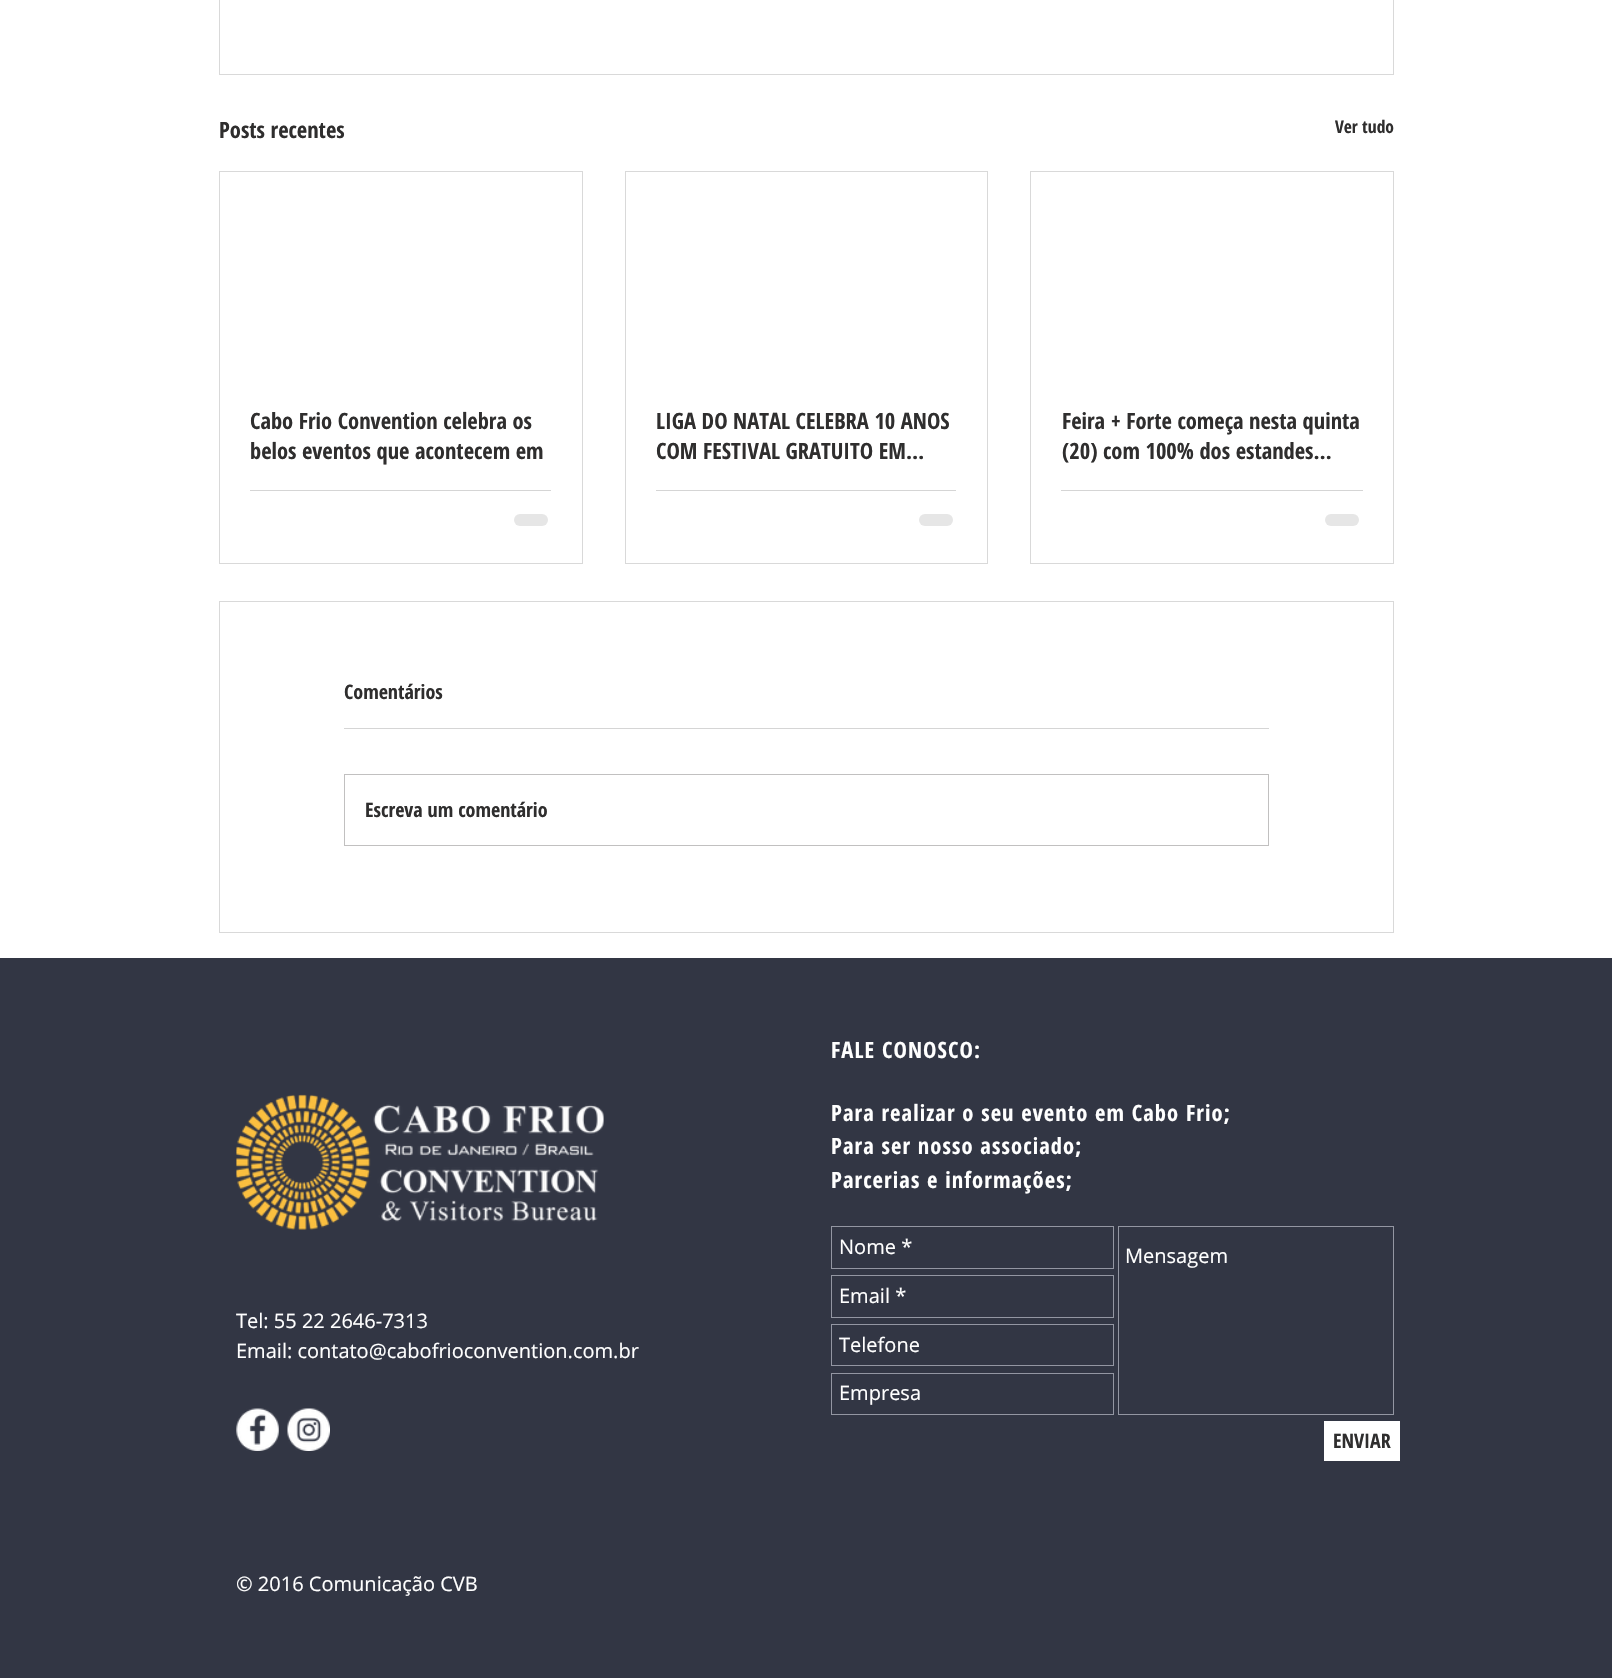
void draw(SkCanvas* canvas) {
    SkPaint paint;
    paint.setAntiAlias(true);
    auto face = [&](const char* family, int weight, float size, bool italic = false) {
        SkFontStyle style(weight, SkFontStyle::kNormal_Width,
            italic ? SkFontStyle::kItalic_Slant : SkFontStyle::kUpright_Slant);
        SkFont result(fontMgr->matchFamilyStyle(family, style), size);
        result.setSubpixel(true);
        return result;
    };
    auto write = [&](const char* s, float x, float y, const SkFont& font, SkColor color) {
        SkPaint ink(SkColor4f::FromColor(color));
        ink.setAntiAlias(true);
        canvas->drawString(s, x, y, font, ink);
    };
    auto writeSpaced = [&](const char* s, float x, float y, const SkFont& font, const SkPaint& ink, float letter, float word) {
        std::vector<SkGlyphID> glyphs(font.countText(s, strlen(s), SkTextEncoding::kUTF8));
        std::vector<float> xs(glyphs.size());
        font.textToGlyphs(s, strlen(s), SkTextEncoding::kUTF8, glyphs);
        font.getXPos(glyphs, xs, x);
        float extra = 0;
        for (size_t i = 0; i < glyphs.size(); i++) {
            xs[i] += extra;
            extra += letter + word * (glyphs[i] == font.unicharToGlyph(' '));
        }
        canvas->drawTextBlob(SkTextBlob::MakeFromPosHGlyphs(glyphs, xs, y, font), 0, 0, ink);
    };
    auto block = [&](float x, float y, float w, float h, SkColor color) {
        SkPaint ink(SkColor4f::FromColor(color));
        ink.setAntiAlias(true);
        canvas->drawRect(SkRect::MakeXYWH(x, y, w, h), ink);
    };
    auto card = [&](float x, float y, float w, float h, float radius, SkColor color) {
        SkPaint ink(SkColor4f::FromColor(color));
        ink.setAntiAlias(true);
        canvas->drawRoundRect(SkRect::MakeXYWH(x, y, w, h), radius, radius, ink);
    };
    auto paste = [&](const char* path, float x, float y, float w, float h) {
        auto image = SkImages::DeferredFromEncodedData(SkData::MakeFromFileName(path));
        canvas->drawImageRect(image, SkRect::MakeXYWH(x, y, w, h), SkSamplingOptions());
    };
    canvas->clear(SK_ColorWHITE);
    paint.setStyle(SkPaint::kStroke_Style);
    paint.setStrokeWidth(1);
    paint.setColor(SkColorSetRGB(217, 217, 217));
    canvas->drawRect(SkRect::MakeXYWH(219.5f, -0.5f, 1174, 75), paint);
    auto kFont1 = face("Open Sans Condensed", 700, 22.5f);
    write("Posts recentes", 219, 138, kFont1, SkColorSetRGB(47, 46, 46));
    auto kFont2 = face("Open Sans Condensed", 700, 17.5f);
    write("Ver tudo", 1335, 133, kFont2, SkColorSetRGB(47, 46, 46));
    canvas->drawRect(SkRect::MakeXYWH(219.5f, 171.5f, 363, 392), paint);
    write("Cabo Frio Convention celebra os", 250, 429, kFont1, SkColorSetRGB(47, 46, 46));
    write("belos eventos que acontecem em", 250, 459, kFont1, SkColorSetRGB(47, 46, 46));
    block(250, 490, 301, 1, SkColorSetRGB(213, 213, 213));
    card(514, 514, 34, 12, 6, SkColorSetRGB(230, 230, 230));
    canvas->drawRect(SkRect::MakeXYWH(625.5f, 171.5f, 362, 392), paint);
    write("LIGA DO NATAL CELEBRA 10 ANOS", 656, 429, kFont1, SkColorSetRGB(47, 46, 46));
    write("COM FESTIVAL GRATUITO EM…", 656, 459, kFont1, SkColorSetRGB(47, 46, 46));
    block(656, 490, 300, 1, SkColorSetRGB(213, 213, 213));
    card(919, 514, 34, 12, 6, SkColorSetRGB(230, 230, 230));
    canvas->drawRect(SkRect::MakeXYWH(1030.5f, 171.5f, 363, 392), paint);
    write("Feira + Forte começa nesta quinta", 1062, 429, kFont1, SkColorSetRGB(47, 46, 46));
    write("(20) com 100% dos estandes…", 1062, 459, kFont1, SkColorSetRGB(47, 46, 46));
    block(1061, 490, 302, 1, SkColorSetRGB(213, 213, 213));
    card(1325, 514, 34, 12, 6, SkColorSetRGB(230, 230, 230));
    canvas->drawRect(SkRect::MakeXYWH(219.5f, 601.5f, 1174, 331), paint);
    auto kFont3 = face("Open Sans Condensed", 700, 20);
    write("Comentários", 344, 699, kFont3, SkColorSetRGB(47, 46, 46));
    block(344, 728, 925, 1, SkColorSetRGB(213, 213, 213));
    paint.setColor(SkColorSetRGB(193, 192, 192));
    canvas->drawRect(SkRect::MakeXYWH(344.5f, 774.5f, 924, 71), paint);
    write("Escreva um comentário", 365, 817, kFont3, SkColorSetRGB(47, 46, 46));
    block(0, 958, 1612, 720, SkColorSetRGB(50, 54, 68));
    paint.setStyle(SkPaint::kFill_Style);
    paint.setColor(SK_ColorWHITE);
    writeSpaced("FALE CONOSCO:", 831, 1058, kFont1, paint, 1.1f, 0);
    paste("pic1.png", 236, 1094, 368, 136);
    writeSpaced("Para realizar o seu evento em Cabo Frio;", 831, 1121, kFont1, paint, 1.1f, 0);
    writeSpaced("Para ser nosso associado;", 831, 1154, kFont1, paint, 1.1f, 0);
    writeSpaced("Parcerias e informações;", 831, 1188, kFont1, paint, 1.1f, 0);
    auto kFont4 = face("Open Sans", 400, 20);
    write("Tel: 55 22 2646-7313", 236, 1328, kFont4, SK_ColorWHITE);
    write("Email: contato@cabofrioconvention.com.br", 236, 1358, kFont4, SK_ColorWHITE);
    paint.setStyle(SkPaint::kStroke_Style);
    paint.setColor(SkColorSetRGB(147, 150, 162));
    canvas->drawRect(SkRect::MakeXYWH(831.5f, 1226.5f, 282, 42), paint);
    write("Nome *", 839, 1254, kFont4, SK_ColorWHITE);
    canvas->drawRect(SkRect::MakeXYWH(1118.5f, 1226.5f, 275, 188), paint);
    write("Mensagem", 1125, 1263, kFont4, SK_ColorWHITE);
    canvas->drawRect(SkRect::MakeXYWH(831.5f, 1275.5f, 282, 42), paint);
    write("Email *", 839, 1303, kFont4, SK_ColorWHITE);
    canvas->drawRect(SkRect::MakeXYWH(831.5f, 1324.5f, 282, 41), paint);
    write("Telefone", 839, 1352, kFont4, SK_ColorWHITE);
    canvas->drawRect(SkRect::MakeXYWH(831.5f, 1373.5f, 282, 41), paint);
    write("Empresa", 839, 1400, kFont4, SK_ColorWHITE);
    block(1324, 1421, 76, 40, SK_ColorWHITE);
    write("ENVIAR", 1333, 1448, kFont3, SkColorSetRGB(47, 46, 46));
    paste("pic2.png", 236, 1408, 43, 43);
    paste("pic3.png", 287, 1408, 43, 43);
    write("© 2016 Comunicação CVB", 236, 1591, kFont4, SK_ColorWHITE);
}
